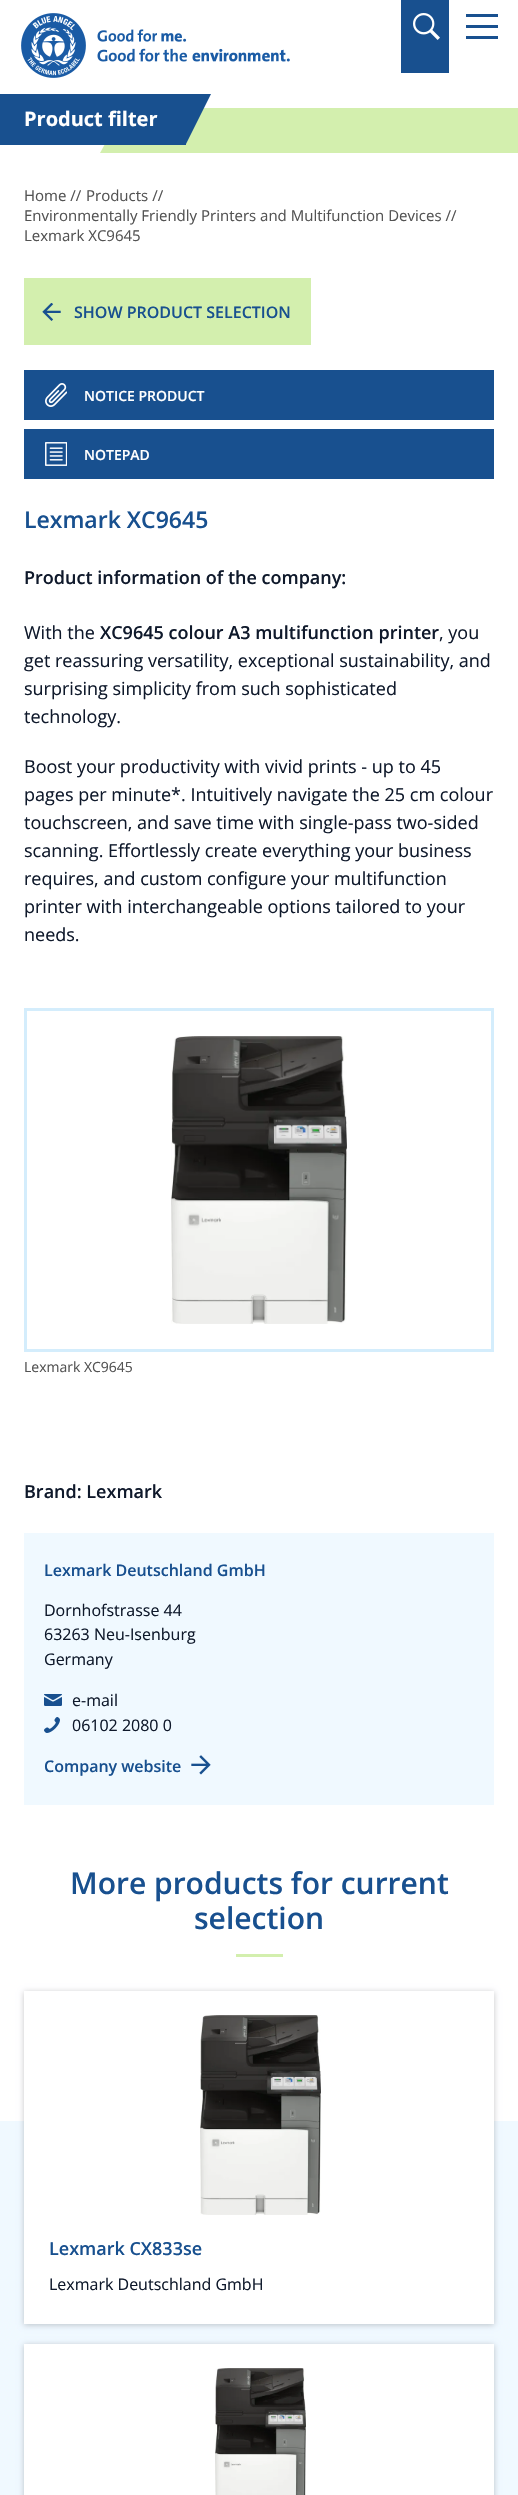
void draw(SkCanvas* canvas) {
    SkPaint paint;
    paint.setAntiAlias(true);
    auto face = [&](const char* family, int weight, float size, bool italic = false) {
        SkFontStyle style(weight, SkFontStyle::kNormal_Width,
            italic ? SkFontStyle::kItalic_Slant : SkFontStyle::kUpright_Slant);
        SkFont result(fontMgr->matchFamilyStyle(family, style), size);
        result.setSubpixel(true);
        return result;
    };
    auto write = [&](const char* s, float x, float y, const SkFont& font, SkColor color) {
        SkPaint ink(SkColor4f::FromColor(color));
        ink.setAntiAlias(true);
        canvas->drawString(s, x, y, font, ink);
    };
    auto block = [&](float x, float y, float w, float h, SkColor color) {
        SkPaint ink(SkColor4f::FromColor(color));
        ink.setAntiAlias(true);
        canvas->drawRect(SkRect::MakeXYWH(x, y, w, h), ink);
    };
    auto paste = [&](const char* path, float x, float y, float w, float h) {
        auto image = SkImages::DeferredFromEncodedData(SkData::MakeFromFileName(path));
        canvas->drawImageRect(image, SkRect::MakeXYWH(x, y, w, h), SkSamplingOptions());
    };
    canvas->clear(SK_ColorWHITE);
    paste("pic1.png", 21, 13, 269, 65);
    block(401, 0, 48, 73, SkColorSetRGB(24, 80, 143));
    paste("pic2.png", 413, 13, 27, 27);
    block(466, 25, 32, 3, SkColorSetRGB(24, 80, 143));
    block(466, 14, 32, 3, SkColorSetRGB(24, 80, 143));
    block(466, 36, 32, 3, SkColorSetRGB(24, 80, 143));
    paint.setColor(SkColorSetRGB(211, 239, 174));
    canvas->drawPath(SkPathBuilder().moveTo(125, 153).lineTo(100, 153).lineTo(125, 108).close().detach(), paint);
    block(125, 108, 393, 45, SkColorSetRGB(211, 239, 174));
    block(0, 94, 186, 51, SkColorSetRGB(24, 80, 143));
    paint.setColor(SkColorSetRGB(24, 80, 143));
    canvas->drawPath(SkPathBuilder().moveTo(186, 94).lineTo(211, 94).lineTo(186, 144).close().detach(), paint);
    auto kFont1 = face("Open Sans", 700, 20);
    write("Product filter", 24, 126, kFont1, SK_ColorWHITE);
    auto kFont2 = face("Open Sans", 400, 15);
    write("Home //", 24, 201, kFont2, SkColorSetRGB(83, 83, 83));
    write("Products //", 86, 201, kFont2, SkColorSetRGB(83, 83, 83));
    write("Environmentally Friendly Printers and Multifunction Devices //", 24, 221, kFont2, SkColorSetRGB(83, 83, 83));
    write("Lexmark XC9645", 24, 241, kFont2, SkColorSetRGB(83, 83, 83));
    block(24, 278, 287, 67, SkColorSetRGB(211, 239, 174));
    paste("pic3.png", 42, 303, 19, 18);
    auto kFont3 = face("Open Sans", 600, 16);
    write("SHOW PRODUCT SELECTION", 74, 318, kFont3, SkColorSetRGB(24, 80, 143));
    block(24, 370, 470, 50, SkColorSetRGB(24, 80, 143));
    paste("pic4.png", 45, 383, 22, 24);
    auto kFont4 = face("Open Sans", 600, 14);
    write("NOTICE PRODUCT", 84, 401, kFont4, SK_ColorWHITE);
    block(24, 429, 470, 50, SkColorSetRGB(24, 80, 143));
    paste("pic5.png", 45, 442, 22, 24);
    write("NOTEPAD", 84, 460, kFont4, SK_ColorWHITE);
    auto kFont5 = face("Open Sans", 600, 23);
    write("Lexmark XC9645", 24, 528, kFont5, SkColorSetRGB(24, 80, 143));
    auto kFont6 = face("Open Sans", 600, 18);
    write("Product information of the company:", 24, 584, kFont6, SkColorSetRGB(15, 25, 43));
    auto kFont7 = face("Open Sans", 400, 18);
    write("With the", 24, 639, kFont7, SkColorSetRGB(15, 25, 43));
    write("XC9645 colour A3 multifunction printer", 100, 639, kFont6, SkColorSetRGB(15, 25, 43));
    write(", you", 439, 639, kFont7, SkColorSetRGB(15, 25, 43));
    write("get reassuring versatility, exceptional sustainability, and", 24, 667, kFont7, SkColorSetRGB(15, 25, 43));
    write("surprising simplicity from such sophisticated", 24, 695, kFont7, SkColorSetRGB(15, 25, 43));
    write("technology.", 24, 723, kFont7, SkColorSetRGB(15, 25, 43));
    write("Boost your productivity with vivid prints - up to 45", 24, 773, kFont7, SkColorSetRGB(15, 25, 43));
    write("pages per minute*. Intuitively navigate the 25 cm colour", 24, 801, kFont7, SkColorSetRGB(15, 25, 43));
    write("touchscreen, and save time with single-pass two-sided", 24, 829, kFont7, SkColorSetRGB(15, 25, 43));
    write("scanning. Effortlessly create everything your business", 24, 857, kFont7, SkColorSetRGB(15, 25, 43));
    write("requires, and custom configure your multifunction", 24, 885, kFont7, SkColorSetRGB(15, 25, 43));
    write("printer with interchangeable options tailored to your", 24, 913, kFont7, SkColorSetRGB(15, 25, 43));
    write("needs.", 24, 941, kFont7, SkColorSetRGB(15, 25, 43));
    paint.setStyle(SkPaint::kStroke_Style);
    paint.setStrokeWidth(3);
    paint.setColor(SkColorSetRGB(212, 237, 252));
    canvas->drawRect(SkRect::MakeXYWH(25.5f, 1009.5f, 467, 341), paint);
    paste("pic6.png", 171, 1036, 176, 288);
    auto kFont8 = face("Open Sans", 400, 14);
    write("Lexmark XC9645", 24, 1372, kFont8, SkColorSetRGB(83, 83, 83));
    write("Brand: Lexmark", 24, 1498, kFont6, SkColorSetRGB(15, 25, 43));
    block(24, 1533, 470, 272, SkColorSetRGB(240, 249, 255));
    write("Lexmark Deutschland GmbH", 44, 1576, kFont3, SkColorSetRGB(24, 80, 143));
    auto kFont9 = face("Open Sans", 400, 16);
    write("Dornhofstrasse 44", 44, 1616, kFont9, SkColorSetRGB(15, 25, 43));
    write("63263 Neu-Isenburg", 44, 1640, kFont9, SkColorSetRGB(15, 25, 43));
    write("Germany", 44, 1665, kFont9, SkColorSetRGB(15, 25, 43));
    paste("pic7.png", 44, 1694, 18, 12);
    write("e-mail", 72, 1706, kFont9, SkColorSetRGB(15, 25, 43));
    paste("pic8.png", 44, 1717, 16, 16);
    write("06102 2080 0", 72, 1731, kFont9, SkColorSetRGB(15, 25, 43));
    write("Company website", 44, 1772, kFont3, SkColorSetRGB(24, 80, 143));
    paste("pic9.png", 191, 1755, 20, 20);
    auto kFont10 = face("Open Sans", 600, 30);
    write("More products for current", 70, 1894, kFont10, SkColorSetRGB(24, 80, 143));
    write("selection", 194, 1929, kFont10, SkColorSetRGB(24, 80, 143));
    block(236, 1954, 47, 3, SkColorSetRGB(211, 239, 174));
    block(0, 2121, 518, 374, SkColorSetRGB(240, 249, 255));
    paint.setStyle(SkPaint::kFill_Style);
    paint.setColor(SkColorSetARGB(56, 0, 0, 9));
    paint.setMaskFilter(SkMaskFilter::MakeBlur(kNormal_SkBlurStyle, 3));
    canvas->drawRect(SkRect::MakeXYWH(24, 1992, 470, 333), paint);
    paint.setMaskFilter(nullptr);
    block(24, 1991, 470, 333, SK_ColorWHITE);
    paste("pic10.png", 200, 2015, 121, 200);
    write("Lexmark CX833se", 49, 2255, kFont6, SkColorSetRGB(24, 80, 143));
    write("Lexmark Deutschland GmbH", 49, 2290, kFont9, SkColorSetRGB(15, 25, 43));
    paint.setMaskFilter(SkMaskFilter::MakeBlur(kNormal_SkBlurStyle, 3));
    canvas->drawRect(SkRect::MakeXYWH(24, 2345, 470, 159), paint);
    paint.setMaskFilter(nullptr);
    block(24, 2344, 470, 151, SK_ColorWHITE);
    paste("pic11.png", 215, 2368, 91, 127);
}
